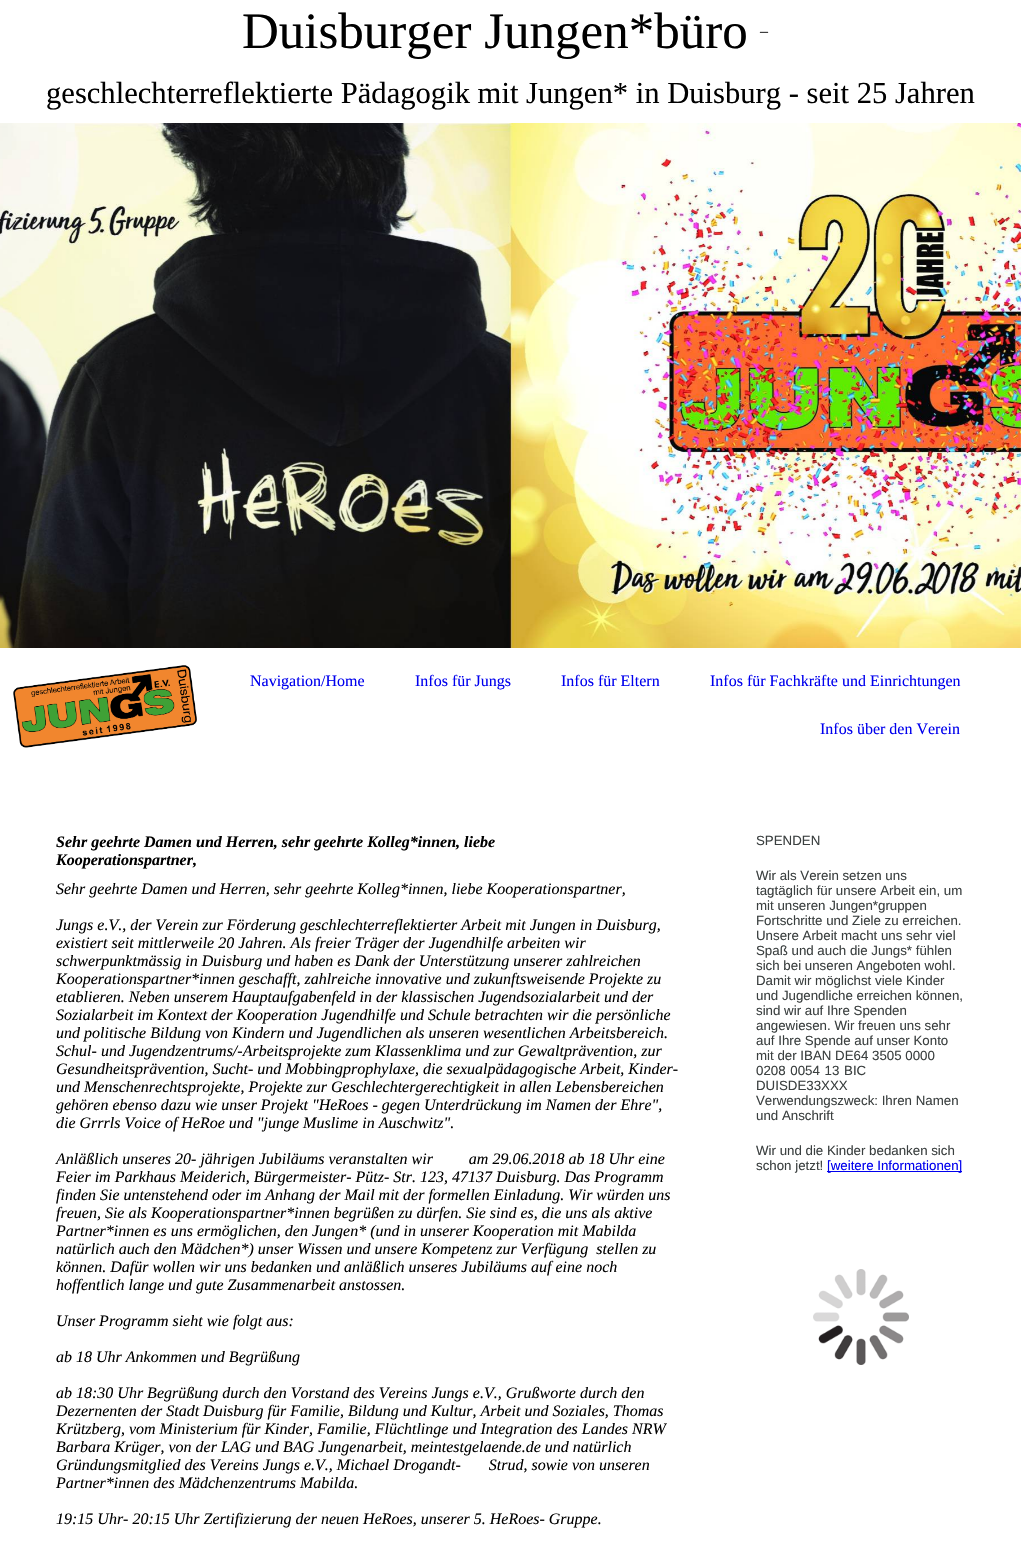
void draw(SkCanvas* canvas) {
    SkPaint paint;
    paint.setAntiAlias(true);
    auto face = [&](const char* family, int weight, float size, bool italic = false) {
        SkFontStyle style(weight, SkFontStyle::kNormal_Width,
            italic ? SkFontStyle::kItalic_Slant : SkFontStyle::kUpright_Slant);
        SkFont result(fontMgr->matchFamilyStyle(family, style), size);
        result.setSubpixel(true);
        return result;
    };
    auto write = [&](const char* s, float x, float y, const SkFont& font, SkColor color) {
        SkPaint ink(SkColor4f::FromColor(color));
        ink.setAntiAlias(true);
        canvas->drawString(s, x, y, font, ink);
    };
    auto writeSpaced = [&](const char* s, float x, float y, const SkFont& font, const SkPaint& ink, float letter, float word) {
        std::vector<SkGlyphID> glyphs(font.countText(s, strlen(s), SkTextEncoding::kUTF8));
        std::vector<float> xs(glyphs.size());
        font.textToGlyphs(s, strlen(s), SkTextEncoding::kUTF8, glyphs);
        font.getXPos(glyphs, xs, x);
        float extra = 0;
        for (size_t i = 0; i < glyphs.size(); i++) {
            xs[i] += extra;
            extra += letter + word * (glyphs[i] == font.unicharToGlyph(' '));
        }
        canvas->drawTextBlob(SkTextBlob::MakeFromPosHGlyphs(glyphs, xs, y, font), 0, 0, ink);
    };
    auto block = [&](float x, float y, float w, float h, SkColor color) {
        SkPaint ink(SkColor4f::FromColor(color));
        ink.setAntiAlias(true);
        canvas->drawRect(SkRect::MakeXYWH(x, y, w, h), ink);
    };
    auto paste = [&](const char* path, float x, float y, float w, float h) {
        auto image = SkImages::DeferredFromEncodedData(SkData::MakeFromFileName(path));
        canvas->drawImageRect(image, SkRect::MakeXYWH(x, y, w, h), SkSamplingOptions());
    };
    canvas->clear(SK_ColorWHITE);
    auto kFont1 = face("Liberation Serif", 400, 51);
    write("Duisburger Jungen*büro", 242, 48, kFont1, SK_ColorBLACK);
    auto kFont2 = face("Liberation Serif", 400, 16);
    write("–", 760, 36, kFont2, SK_ColorBLACK);
    auto kFont3 = face("Liberation Serif", 400, 30.6f);
    write("geschlechterreflektierte Pädagogik mit Jungen* in Duisburg - seit 25 Jahren", 46, 103, kFont3, SK_ColorBLACK);
    paste("pic1.png", 0, 123, 1021, 525);
    paste("pic2.png", 13, 665, 184, 83);
    write("Navigation/Home", 250, 686, kFont2, SkColorSetRGB(0, 0, 238));
    write("Infos für Jungs", 415, 686, kFont2, SkColorSetRGB(0, 0, 238));
    write("Infos für Eltern", 561, 686, kFont2, SkColorSetRGB(0, 0, 238));
    write("Infos für Fachkräfte und Einrichtungen", 710, 686, kFont2, SkColorSetRGB(0, 0, 238));
    write("Infos über den Verein", 820, 734, kFont2, SkColorSetRGB(0, 0, 238));
    auto kFont4 = face("Liberation Serif", 700, 16, true);
    write("Sehr geehrte Damen und Herren, sehr geehrte Kolleg*innen, liebe", 56, 847, kFont4, SK_ColorBLACK);
    write("Kooperationspartner,", 56, 865, kFont4, SK_ColorBLACK);
    auto kFont5 = face("Liberation Serif", 400, 16, true);
    write("Sehr geehrte Damen und Herren, sehr geehrte Kolleg*innen, liebe Kooperationspartner,", 56, 894, kFont5, SK_ColorBLACK);
    write("Jungs e.V., der Verein zur Förderung geschlechterreflektierter Arbeit mit Jungen in Duisburg,", 56, 930, kFont5, SK_ColorBLACK);
    write("existiert seit mittlerweile 20 Jahren. Als freier Träger der Jugendhilfe arbeiten wir", 56, 948, kFont5, SK_ColorBLACK);
    write("schwerpunktmässig in Duisburg und haben es Dank der Unterstützung unserer zahlreichen", 56, 966, kFont5, SK_ColorBLACK);
    write("Kooperationspartner*innen geschafft, zahlreiche innovative und zukunftsweisende Projekte zu", 56, 984, kFont5, SK_ColorBLACK);
    write("etablieren. Neben unserem Hauptaufgabenfeld in der klassischen Jugendsozialarbeit und der", 56, 1002, kFont5, SK_ColorBLACK);
    write("Sozialarbeit im Kontext der Kooperation Jugendhilfe und Schule betrachten wir die persönliche", 56, 1020, kFont5, SK_ColorBLACK);
    write("und politische Bildung von Kindern und Jugendlichen als unseren wesentlichen Arbeitsbereich.", 56, 1038, kFont5, SK_ColorBLACK);
    write("Schul- und Jugendzentrums/-Arbeitsprojekte zum Klassenklima und zur Gewaltprävention, zur", 56, 1056, kFont5, SK_ColorBLACK);
    write("Gesundheitsprävention, Sucht- und Mobbingprophylaxe, die sexualpädagogische Arbeit, Kinder-", 56, 1074, kFont5, SK_ColorBLACK);
    write("und Menschenrechtsprojekte, Projekte zur Geschlechtergerechtigkeit in allen Lebensbereichen", 56, 1092, kFont5, SK_ColorBLACK);
    write("gehören ebenso dazu wie unser Projekt \"HeRoes - gegen Unterdrückung im Namen der Ehre\",", 56, 1110, kFont5, SK_ColorBLACK);
    write("die Grrrls Voice of HeRoe und \"junge Muslime in Auschwitz\".", 56, 1128, kFont5, SK_ColorBLACK);
    write("Anläßlich unseres 20- jährigen Jubiläums veranstalten wir         am 29.06.2018 ab 18 Uhr eine", 56, 1164, kFont5, SK_ColorBLACK);
    write("Feier im Parkhaus Meiderich, Bürgermeister- Pütz- Str. 123, 47137 Duisburg. Das Programm", 56, 1182, kFont5, SK_ColorBLACK);
    write("finden Sie untenstehend oder im Anhang der Mail mit der formellen Einladung. Wir würden uns", 56, 1200, kFont5, SK_ColorBLACK);
    write("freuen, Sie als Kooperationspartner*innen begrüßen zu dürfen. Sie sind es, die uns als aktive", 56, 1218, kFont5, SK_ColorBLACK);
    write("Partner*innen es uns ermöglichen, den Jungen* (und in unserer Kooperation mit Mabilda", 56, 1236, kFont5, SK_ColorBLACK);
    write("natürlich auch den Mädchen*) unser Wissen und unsere Kompetenz zur Verfügung  stellen zu", 56, 1254, kFont5, SK_ColorBLACK);
    write("können. Dafür wollen wir uns bedanken und anläßlich unseres Jubiläums auf eine noch", 56, 1272, kFont5, SK_ColorBLACK);
    write("hoffentlich lange und gute Zusammenarbeit anstossen.", 56, 1290, kFont5, SK_ColorBLACK);
    write("Unser Programm sieht wie folgt aus:", 56, 1326, kFont5, SK_ColorBLACK);
    write("ab 18 Uhr Ankommen und Begrüßung", 56, 1362, kFont5, SK_ColorBLACK);
    write("ab 18:30 Uhr Begrüßung durch den Vorstand des Vereins Jungs e.V., Grußworte durch den", 56, 1398, kFont5, SK_ColorBLACK);
    write("Dezernenten der Stadt Duisburg für Familie, Bildung und Kultur, Arbeit und Soziales, Thomas", 56, 1416, kFont5, SK_ColorBLACK);
    write("Krützberg, vom Ministerium für Kinder, Familie, Flüchtlinge und Integration des Landes NRW", 56, 1434, kFont5, SK_ColorBLACK);
    write("Barbara Krüger, von der LAG und BAG Jungenarbeit, meintestgelaende.de und natürlich", 56, 1452, kFont5, SK_ColorBLACK);
    write("Gründungsmitglied des Vereins Jungs e.V., Michael Drogandt-       Strud, sowie von unseren", 56, 1470, kFont5, SK_ColorBLACK);
    write("Partner*innen des Mädchenzentrums Mabilda.", 56, 1488, kFont5, SK_ColorBLACK);
    write("19:15 Uhr- 20:15 Uhr Zertifizierung der neuen HeRoes, unserer 5. HeRoes- Gruppe.", 56, 1524, kFont5, SK_ColorBLACK);
    auto kFont6 = face("Liberation Sans", 400, 13.3f);
    write("SPENDEN", 756, 845, kFont6, SkColorSetRGB(59, 64, 64));
    write("Wir als Verein setzen uns", 756, 880, kFont6, SkColorSetRGB(59, 64, 64));
    write("tagtäglich für unsere Arbeit ein, um", 756, 895, kFont6, SkColorSetRGB(59, 64, 64));
    write("mit unseren Jungen*gruppen", 756, 910, kFont6, SkColorSetRGB(59, 64, 64));
    write("Fortschritte und Ziele zu erreichen.", 756, 925, kFont6, SkColorSetRGB(59, 64, 64));
    write("Unsere Arbeit macht uns sehr viel", 756, 940, kFont6, SkColorSetRGB(59, 64, 64));
    write("Spaß und auch die Jungs* fühlen", 756, 955, kFont6, SkColorSetRGB(59, 64, 64));
    write("sich bei unseren Angeboten wohl.", 756, 970, kFont6, SkColorSetRGB(59, 64, 64));
    write("Damit wir möglichst viele Kinder", 756, 985, kFont6, SkColorSetRGB(59, 64, 64));
    write("und Jugendliche erreichen können,", 756, 1000, kFont6, SkColorSetRGB(59, 64, 64));
    write("sind wir auf Ihre Spenden", 756, 1015, kFont6, SkColorSetRGB(59, 64, 64));
    write("angewiesen. Wir freuen uns sehr", 756, 1030, kFont6, SkColorSetRGB(59, 64, 64));
    write("auf Ihre Spende auf unser Konto", 756, 1045, kFont6, SkColorSetRGB(59, 64, 64));
    write("mit der IBAN DE64 3505 0000", 756, 1060, kFont6, SkColorSetRGB(59, 64, 64));
    paint.setColor(SkColorSetRGB(59, 64, 64));
    writeSpaced("0208 0054 13 BIC", 756, 1075, kFont6, paint, 0, 1);
    write("DUISDE33XXX", 756, 1090, kFont6, SkColorSetRGB(59, 64, 64));
    write("Verwendungszweck: Ihren Namen", 756, 1105, kFont6, SkColorSetRGB(59, 64, 64));
    write("und Anschrift", 756, 1120, kFont6, SkColorSetRGB(59, 64, 64));
    write("Wir und die Kinder bedanken sich", 756, 1155, kFont6, SkColorSetRGB(59, 64, 64));
    write("schon jetzt!", 756, 1170, kFont6, SkColorSetRGB(59, 64, 64));
    block(827, 1171, 135, 1, SkColorSetRGB(0, 0, 238));
    write("[weitere Informationen]", 827, 1170, kFont6, SkColorSetRGB(0, 0, 238));
    paste("pic3.png", 813, 1269, 96, 96);
}
